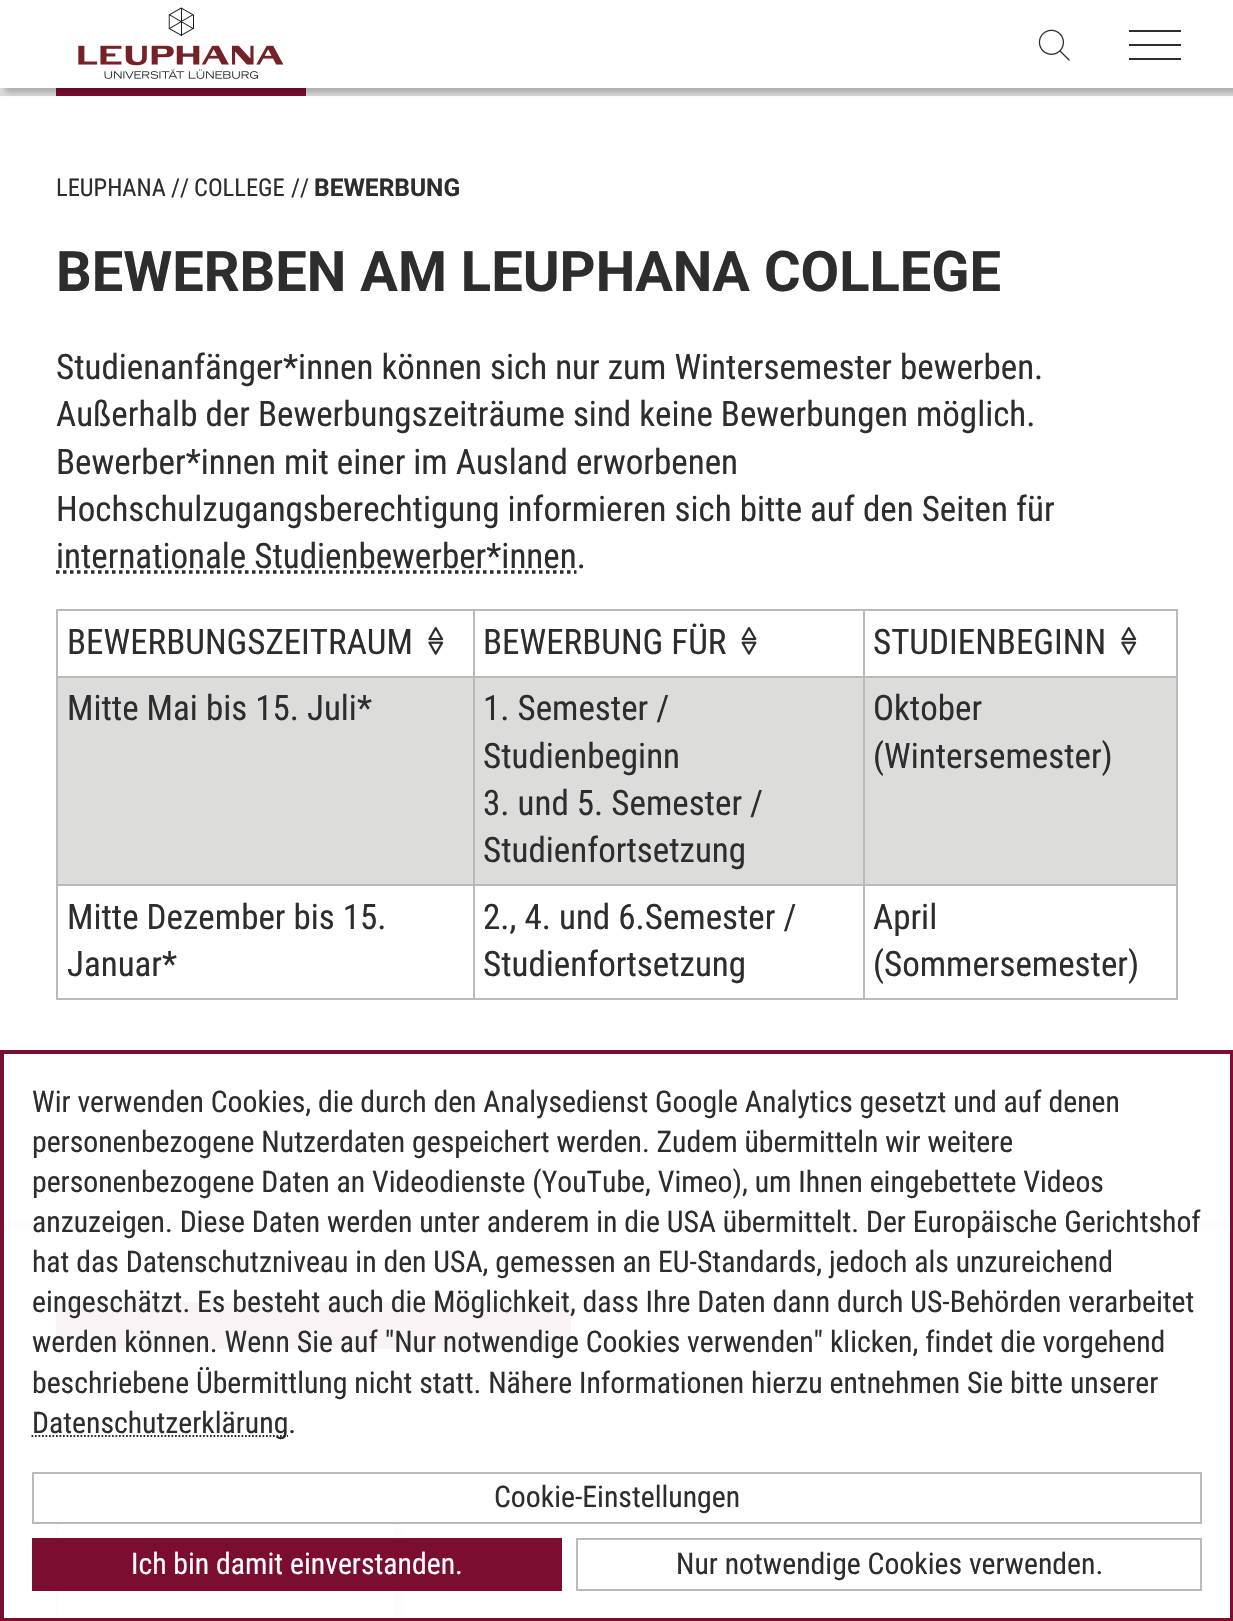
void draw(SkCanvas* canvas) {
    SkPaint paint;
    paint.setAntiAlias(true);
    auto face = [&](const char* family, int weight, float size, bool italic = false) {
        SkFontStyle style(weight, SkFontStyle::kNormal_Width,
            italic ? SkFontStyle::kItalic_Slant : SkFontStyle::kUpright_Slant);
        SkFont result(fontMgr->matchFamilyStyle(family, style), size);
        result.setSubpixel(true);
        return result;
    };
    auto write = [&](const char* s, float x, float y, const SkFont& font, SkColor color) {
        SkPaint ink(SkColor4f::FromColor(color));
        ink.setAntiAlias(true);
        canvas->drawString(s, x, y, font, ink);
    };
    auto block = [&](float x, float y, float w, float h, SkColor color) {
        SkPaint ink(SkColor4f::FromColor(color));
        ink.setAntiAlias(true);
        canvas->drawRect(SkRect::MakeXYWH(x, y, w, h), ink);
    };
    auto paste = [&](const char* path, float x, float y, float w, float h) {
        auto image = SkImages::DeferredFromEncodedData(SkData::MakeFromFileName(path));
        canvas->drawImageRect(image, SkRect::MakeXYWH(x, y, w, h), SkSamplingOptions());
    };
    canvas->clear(SkColorSetRGB(220, 221, 219));
    block(0, 0, 1233, 88, SK_ColorWHITE);
    paste("pic1.png", 78, 7, 206, 72);
    block(4, 1223, 1226, 9, SkColorSetRGB(241, 241, 240));
    paint.setColor(SkColorSetARGB(51, 0, 0, 0));
    paint.setMaskFilter(SkMaskFilter::MakeBlur(kNormal_SkBlurStyle, 2.5f));
    canvas->drawRect(SkRect::MakeXYWH(5, 102, 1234, 1127), paint);
    paint.setMaskFilter(nullptr);
    block(56, 88, 250, 8, SkColorSetRGB(123, 14, 48));
    paste("pic2.png", 1038, 29, 32, 32);
    block(1129, 44, 52, 2, SkColorSetRGB(45, 45, 45));
    block(1129, 30, 52, 2, SkColorSetRGB(45, 45, 45));
    block(1129, 58, 52, 2, SkColorSetRGB(45, 45, 45));
    block(0, 96, 1233, 1127, SK_ColorWHITE);
    canvas->save();
    canvas->clipPath(SkPathBuilder(SkPathFillType::kEvenOdd).moveTo(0, 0).lineTo(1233, 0).lineTo(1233, 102).lineTo(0, 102).close().moveTo(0, -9).lineTo(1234, -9).lineTo(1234, 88).lineTo(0, 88).close().detach(), true);
    paint.setMaskFilter(SkMaskFilter::MakeBlur(kNormal_SkBlurStyle, 2.5f));
    canvas->drawRect(SkRect::MakeXYWH(5, -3, 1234, 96), paint);
    paint.setMaskFilter(nullptr);
    canvas->restore();
    auto kFont1 = face("Roboto Condensed", 400, 24.5f);
    write("LEUPHANA", 56, 196, kFont1, SkColorSetRGB(45, 45, 45));
    write("//", 171, 196, kFont1, SkColorSetRGB(45, 45, 45));
    write("COLLEGE", 194, 196, kFont1, SkColorSetRGB(45, 45, 45));
    write("//", 291, 196, kFont1, SkColorSetRGB(45, 45, 45));
    auto kFont2 = face("Roboto", 700, 24.5f);
    write("BEWERBUNG", 314, 196, kFont2, SkColorSetRGB(45, 45, 45));
    auto kFont3 = face("Roboto", 700, 56);
    write("BEWERBEN AM LEUPHANA COLLEGE", 56, 291, kFont3, SkColorSetRGB(45, 45, 45));
    auto kFont4 = face("Roboto Condensed", 400, 35);
    write("Studienanfänger*innen können sich nur zum Wintersemester bewerben.", 56, 379, kFont4, SkColorSetRGB(45, 45, 45));
    write("Außerhalb der Bewerbungszeiträume sind keine Bewerbungen möglich.", 56, 426, kFont4, SkColorSetRGB(45, 45, 45));
    write("Bewerber*innen mit einer im Ausland erworbenen", 56, 474, kFont4, SkColorSetRGB(45, 45, 45));
    write("Hochschulzugangsberechtigung informieren sich bitte auf den Seiten für", 56, 521, kFont4, SkColorSetRGB(45, 45, 45));
    write("internationale Studienbewerber*innen.", 56, 568, kFont4, SkColorSetRGB(45, 45, 45));
    paint.setStyle(SkPaint::kStroke_Style);
    paint.setStrokeWidth(3.5f);
    paint.setColor(SkColorSetRGB(45, 45, 45));
    paint.setPathEffect(SkDashPathEffect::Make({{3.5f, 3.5f}}, 0));
    canvas->drawPath(SkPathBuilder().moveTo(56, 572).lineTo(576.5f, 572).detach(), paint);
    paint.setPathEffect(nullptr);
    block(863, 609, 315, 2, SkColorSetRGB(185, 187, 182));
    block(863, 676, 315, 2, SkColorSetRGB(185, 187, 182));
    block(58, 678, 1118, 206, SkColorSetRGB(220, 221, 219));
    block(863, 884, 315, 2, SkColorSetRGB(185, 187, 182));
    block(1176, 884, 2, 115, SkColorSetRGB(185, 187, 182));
    block(863, 998, 315, 2, SkColorSetRGB(185, 187, 182));
    block(863, 884, 2, 115, SkColorSetRGB(185, 187, 182));
    block(473, 884, 392, 2, SkColorSetRGB(185, 187, 182));
    block(863, 676, 2, 210, SkColorSetRGB(185, 187, 182));
    block(473, 676, 392, 2, SkColorSetRGB(185, 187, 182));
    block(863, 609, 2, 68, SkColorSetRGB(185, 187, 182));
    block(473, 609, 392, 2, SkColorSetRGB(185, 187, 182));
    block(473, 998, 392, 2, SkColorSetRGB(185, 187, 182));
    block(473, 884, 2, 115, SkColorSetRGB(185, 187, 182));
    block(56, 884, 418, 2, SkColorSetRGB(185, 187, 182));
    block(473, 676, 2, 210, SkColorSetRGB(185, 187, 182));
    block(56, 676, 418, 2, SkColorSetRGB(185, 187, 182));
    block(473, 609, 2, 68, SkColorSetRGB(185, 187, 182));
    block(56, 609, 418, 2, SkColorSetRGB(185, 187, 182));
    block(56, 998, 418, 2, SkColorSetRGB(185, 187, 182));
    block(56, 884, 2, 115, SkColorSetRGB(185, 187, 182));
    block(56, 676, 2, 210, SkColorSetRGB(185, 187, 182));
    block(56, 609, 2, 68, SkColorSetRGB(185, 187, 182));
    write("BEWERBUNGSZEITRAUM", 67, 654, kFont4, SkColorSetRGB(45, 45, 45));
    paste("pic3.png", 428, 627, 16, 28);
    write("BEWERBUNG FÜR", 483, 654, kFont4, SkColorSetRGB(45, 45, 45));
    paste("pic4.png", 741, 627, 16, 28);
    block(1176, 676, 2, 210, SkColorSetRGB(185, 187, 182));
    block(1176, 609, 2, 68, SkColorSetRGB(185, 187, 182));
    write("STUDIENBEGINN", 873, 654, kFont4, SkColorSetRGB(45, 45, 45));
    paste("pic3.png", 1121, 627, 16, 28);
    write("Mitte Mai bis 15. Juli*", 67, 720, kFont4, SkColorSetRGB(45, 45, 45));
    write("1. Semester /", 483, 720, kFont4, SkColorSetRGB(45, 45, 45));
    write("Studienbeginn", 483, 768, kFont4, SkColorSetRGB(45, 45, 45));
    write("3. und 5. Semester /", 483, 815, kFont4, SkColorSetRGB(45, 45, 45));
    write("Studienfortsetzung", 483, 862, kFont4, SkColorSetRGB(45, 45, 45));
    write("Oktober", 873, 720, kFont4, SkColorSetRGB(45, 45, 45));
    write("(Wintersemester)", 873, 768, kFont4, SkColorSetRGB(45, 45, 45));
    write("Mitte Dezember bis 15.", 67, 929, kFont4, SkColorSetRGB(45, 45, 45));
    write("Januar*", 67, 976, kFont4, SkColorSetRGB(45, 45, 45));
    write("2., 4. und 6.Semester /", 483, 929, kFont4, SkColorSetRGB(45, 45, 45));
    write("Studienfortsetzung", 483, 976, kFont4, SkColorSetRGB(45, 45, 45));
    write("April", 873, 929, kFont4, SkColorSetRGB(45, 45, 45));
    write("(Sommersemester)", 873, 976, kFont4, SkColorSetRGB(45, 45, 45));
    paint.setStrokeWidth(1.8f);
    paint.setPathEffect(SkDashPathEffect::Make({{1.75f, 1.75f}}, 0));
    canvas->drawPath(SkPathBuilder().moveTo(177.5f, 1147).lineTo(262.5f, 1147).detach(), paint);
    paint.setPathEffect(nullptr);
    block(4, 1232, 1226, 386, SK_ColorWHITE);
    block(56, 1302, 515, 47, SkColorSetRGB(123, 14, 48));
    canvas->save();
    canvas->clipRect(SkRect::MakeXYWH(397, 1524, 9, 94));
    paint.setStyle(SkPaint::kFill_Style);
    paint.setColor(SkColorSetARGB(51, 0, 0, 0));
    paint.setMaskFilter(SkMaskFilter::MakeBlur(kNormal_SkBlurStyle, 2.5f));
    canvas->drawRect(SkRect::MakeXYWH(61, 1523, 342, 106), paint);
    paint.setMaskFilter(nullptr);
    canvas->restore();
    paint.setStyle(SkPaint::kStroke_Style);
    paint.setStrokeWidth(2);
    paint.setColor(SkColorSetRGB(185, 187, 182));
    canvas->drawRect(SkRect::MakeXYWH(57, 1518, 339, 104), paint);
    block(4, 1146, 1226, 472, SkColorSetARGB(242, 255, 255, 255));
    paint.setStrokeWidth(4);
    paint.setColor(SkColorSetRGB(123, 14, 48));
    canvas->drawRect(SkRect::MakeXYWH(2, 1052, 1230, 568), paint);
    auto kFont5 = face("Roboto Condensed", 400, 29.75f);
    write("Wir verwenden Cookies, die durch den Analysedienst Google Analytics gesetzt und auf denen", 32, 1112, kFont5, SkColorSetRGB(45, 45, 45));
    write("personenbezogene Nutzerdaten gespeichert werden. Zudem übermitteln wir weitere", 32, 1152, kFont5, SkColorSetRGB(45, 45, 45));
    write("personenbezogene Daten an Videodienste (YouTube, Vimeo), um Ihnen eingebettete Videos", 32, 1192, kFont5, SkColorSetRGB(45, 45, 45));
    write("anzuzeigen. Diese Daten werden unter anderem in die USA übermittelt. Der Europäische Gerichtshof", 32, 1232, kFont5, SkColorSetRGB(45, 45, 45));
    write("hat das Datenschutzniveau in den USA, gemessen an EU-Standards, jedoch als unzureichend", 32, 1272, kFont5, SkColorSetRGB(45, 45, 45));
    write("eingeschätzt. Es besteht auch die Möglichkeit, dass Ihre Daten dann durch US-Behörden verarbeitet", 32, 1312, kFont5, SkColorSetRGB(45, 45, 45));
    write("werden können. Wenn Sie auf \"Nur notwendige Cookies verwenden\" klicken, findet die vorgehend", 32, 1352, kFont5, SkColorSetRGB(45, 45, 45));
    write("beschriebene Übermittlung nicht statt. Nähere Informationen hierzu entnehmen Sie bitte unserer", 32, 1393, kFont5, SkColorSetRGB(45, 45, 45));
    paint.setStrokeWidth(1.8f);
    paint.setColor(SkColorSetRGB(45, 45, 45));
    paint.setPathEffect(SkDashPathEffect::Make({{1.75f, 1.75f}}, 0));
    canvas->drawPath(SkPathBuilder().moveTo(31.5f, 1436).lineTo(288, 1436).detach(), paint);
    paint.setPathEffect(nullptr);
    write("Datenschutzerklärung.", 32, 1433, kFont5, SkColorSetRGB(45, 45, 45));
    block(56, 1517, 341, 5, SK_ColorWHITE);
    paint.setStrokeWidth(2);
    paint.setColor(SkColorSetRGB(185, 187, 182));
    canvas->drawRect(SkRect::MakeXYWH(33, 1473, 1168, 50), paint);
    write("Cookie-Einstellungen", 494, 1507, kFont5, SkColorSetRGB(45, 45, 45));
    block(32, 1538, 530, 53, SkColorSetRGB(123, 14, 48));
    write("Ich bin damit einverstanden.", 131, 1574, kFont5, SK_ColorWHITE);
    canvas->drawRect(SkRect::MakeXYWH(577, 1539, 624, 51), paint);
    write("Nur notwendige Cookies verwenden.", 676, 1574, kFont5, SkColorSetRGB(45, 45, 45));
}
